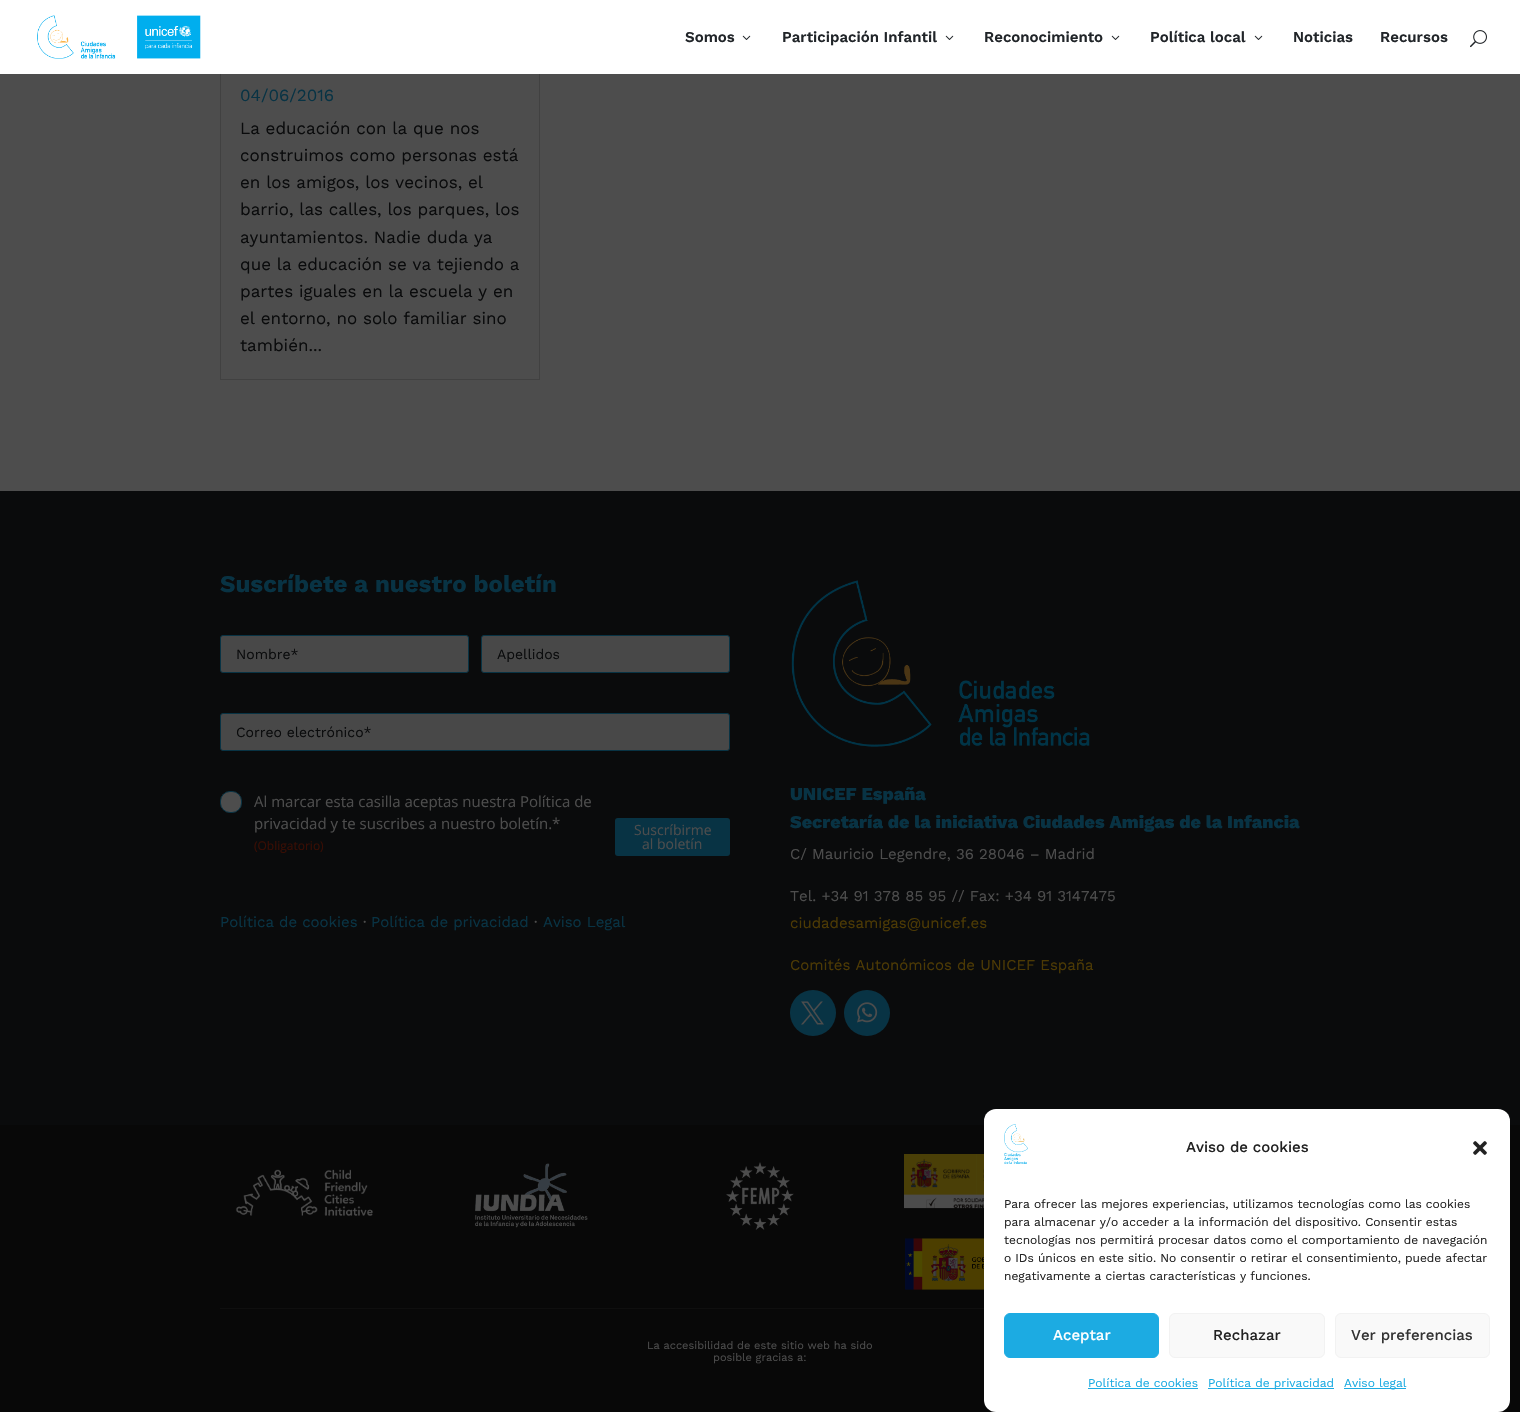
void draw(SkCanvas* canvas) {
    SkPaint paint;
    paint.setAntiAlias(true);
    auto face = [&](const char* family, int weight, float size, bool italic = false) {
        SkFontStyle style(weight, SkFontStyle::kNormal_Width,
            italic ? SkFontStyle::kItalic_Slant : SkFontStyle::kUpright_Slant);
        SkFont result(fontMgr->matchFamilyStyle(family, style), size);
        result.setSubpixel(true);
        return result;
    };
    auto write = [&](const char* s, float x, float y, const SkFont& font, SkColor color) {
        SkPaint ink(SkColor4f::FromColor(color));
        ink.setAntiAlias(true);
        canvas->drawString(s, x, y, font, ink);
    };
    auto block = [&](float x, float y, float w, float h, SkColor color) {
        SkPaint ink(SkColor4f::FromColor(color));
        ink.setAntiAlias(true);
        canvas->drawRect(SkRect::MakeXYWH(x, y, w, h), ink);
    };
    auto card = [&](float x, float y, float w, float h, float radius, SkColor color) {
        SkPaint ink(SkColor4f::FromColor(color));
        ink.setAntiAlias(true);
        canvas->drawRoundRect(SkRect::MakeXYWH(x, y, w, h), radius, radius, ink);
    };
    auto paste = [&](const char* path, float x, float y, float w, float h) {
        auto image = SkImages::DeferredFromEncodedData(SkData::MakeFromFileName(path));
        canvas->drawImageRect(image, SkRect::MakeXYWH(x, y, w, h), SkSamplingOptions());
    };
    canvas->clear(SkColorSetRGB(77, 77, 77));
    paint.setStyle(SkPaint::kStroke_Style);
    paint.setStrokeWidth(1);
    paint.setColor(SkColorSetRGB(65, 65, 65));
    canvas->drawRect(SkRect::MakeXYWH(220.5f, -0.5f, 319, 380), paint);
    block(0, 0, 1520, 74, SK_ColorWHITE);
    paste("pic1.png", 37, 15, 164, 44);
    auto kFont1 = face("Work Sans", 600, 15);
    write("Somos", 685, 42, kFont1, SkColorSetRGB(33, 37, 41));
    paste("pic2.png", 742, 35, 9, 5);
    write("Participación Infantil", 782, 42, kFont1, SkColorSetRGB(33, 37, 41));
    paste("pic2.png", 945, 35, 9, 5);
    write("Reconocimiento", 984, 42, kFont1, SkColorSetRGB(33, 37, 41));
    paste("pic2.png", 1111, 35, 9, 5);
    write("Política local", 1150, 42, kFont1, SkColorSetRGB(33, 37, 41));
    paste("pic2.png", 1254, 35, 9, 5);
    write("Noticias", 1293, 42, kFont1, SkColorSetRGB(33, 37, 41));
    write("Recursos", 1380, 42, kFont1, SkColorSetRGB(33, 37, 41));
    paste("pic3.png", 1470, 30, 17, 18);
    auto kFont2 = face("Work Sans", 400, 17);
    write("04/06/2016", 240, 101, kFont2, SkColorSetRGB(8, 51, 68));
    write("La educación con la que nos", 240, 134, kFont2, SkColorSetRGB(10, 11, 12));
    write("construimos como personas está", 240, 161, kFont2, SkColorSetRGB(10, 11, 12));
    write("en los amigos, los vecinos, el", 240, 188, kFont2, SkColorSetRGB(10, 11, 12));
    write("barrio, las calles, los parques, los", 240, 215, kFont2, SkColorSetRGB(10, 11, 12));
    write("ayuntamientos. Nadie duda ya", 240, 243, kFont2, SkColorSetRGB(10, 11, 12));
    write("que la educación se va tejiendo a", 240, 270, kFont2, SkColorSetRGB(10, 11, 12));
    write("partes iguales en la escuela y en", 240, 297, kFont2, SkColorSetRGB(10, 11, 12));
    write("el entorno, no solo familiar sino", 240, 324, kFont2, SkColorSetRGB(10, 11, 12));
    write("también...", 240, 351, kFont2, SkColorSetRGB(10, 11, 12));
    block(0, 491, 1520, 634, SkColorSetRGB(10, 11, 12));
    auto kFont3 = face("Work Sans", 700, 24);
    write("Suscríbete a nuestro boletín", 220, 592, kFont3, SkColorSetRGB(8, 51, 68));
    paint.setStyle(SkPaint::kFill_Style);
    paint.setColor(SkColorSetRGB(72, 72, 72));
    canvas->drawRoundRect(SkRect::MakeXYWH(220.5f, 635.5f, 248, 37), 2.5f, 2.5f, paint);
    paint.setStyle(SkPaint::kStroke_Style);
    paint.setColor(SkColorSetRGB(8, 51, 68));
    canvas->drawRoundRect(SkRect::MakeXYWH(220.5f, 635.5f, 248, 37), 2.5f, 2.5f, paint);
    auto kFont4 = face("Work Sans", 400, 14);
    write("Nombre*", 236, 659, kFont4, SkColorSetRGB(10, 11, 12));
    paint.setStyle(SkPaint::kFill_Style);
    paint.setColor(SkColorSetRGB(72, 72, 72));
    canvas->drawRoundRect(SkRect::MakeXYWH(481.5f, 635.5f, 248, 37), 2.5f, 2.5f, paint);
    paint.setStyle(SkPaint::kStroke_Style);
    paint.setColor(SkColorSetRGB(8, 51, 68));
    canvas->drawRoundRect(SkRect::MakeXYWH(481.5f, 635.5f, 248, 37), 2.5f, 2.5f, paint);
    write("Apellidos", 497, 659, kFont4, SkColorSetRGB(10, 11, 12));
    paint.setStyle(SkPaint::kFill_Style);
    paint.setColor(SkColorSetRGB(72, 72, 72));
    canvas->drawRoundRect(SkRect::MakeXYWH(220.5f, 713.5f, 509, 37), 2.5f, 2.5f, paint);
    paint.setStyle(SkPaint::kStroke_Style);
    paint.setColor(SkColorSetRGB(8, 51, 68));
    canvas->drawRoundRect(SkRect::MakeXYWH(220.5f, 713.5f, 509, 37), 2.5f, 2.5f, paint);
    write("Correo electrónico*", 236, 737, kFont4, SkColorSetRGB(10, 11, 12));
    paint.setStyle(SkPaint::kFill_Style);
    paint.setColor(SkColorSetRGB(77, 77, 77));
    canvas->drawRoundRect(SkRect::MakeXYWH(220.5f, 791.5f, 21, 21), 9.5f, 9.5f, paint);
    paint.setStyle(SkPaint::kStroke_Style);
    paint.setColor(SkColorSetRGB(8, 51, 68));
    canvas->drawRoundRect(SkRect::MakeXYWH(220.5f, 791.5f, 21, 21), 9.5f, 9.5f, paint);
    auto kFont5 = face("Open Sans", 400, 15);
    write("Al marcar esta casilla aceptas nuestra Política de", 254, 807, kFont5, SkColorSetRGB(77, 77, 77));
    write("privacidad y te suscribes a nuestro boletín.*", 254, 829, kFont5, SkColorSetRGB(77, 77, 77));
    auto kFont6 = face("Open Sans", 400, 12);
    write("(Obligatorio)", 254, 850, kFont6, SkColorSetRGB(58, 13, 3));
    card(615, 818, 115, 38, 3, SkColorSetRGB(8, 51, 68));
    auto kFont7 = face("Open Sans", 400, 14);
    write("Suscríbirme", 634, 835, kFont7, SkColorSetRGB(77, 77, 77));
    write("al boletín", 642, 849, kFont7, SkColorSetRGB(77, 77, 77));
    auto kFont8 = face("Work Sans", 400, 15);
    write("Política de cookies", 220, 927, kFont8, SkColorSetRGB(8, 51, 68));
    write("·", 363, 927, kFont8, SkColorSetRGB(77, 77, 77));
    write("Política de privacidad", 371, 927, kFont8, SkColorSetRGB(8, 51, 68));
    write("·", 534, 927, kFont8, SkColorSetRGB(77, 77, 77));
    write("Aviso Legal", 543, 927, kFont8, SkColorSetRGB(8, 51, 68));
    paste("pic4.png", 791, 580, 299, 167);
    auto kFont9 = face("Work Sans", 800, 18);
    write("UNICEF España", 790, 800, kFont9, SkColorSetRGB(8, 51, 68));
    write("Secretaría de la iniciativa Ciudades Amigas de la Infancia", 790, 828, kFont9, SkColorSetRGB(8, 51, 68));
    write("C/ Mauricio Legendre, 36 28046 – Madrid", 790, 859, kFont8, SkColorSetRGB(77, 77, 77));
    write("Tel. +34 91 378 85 95 // Fax: +34 91 3147475", 790, 901, kFont8, SkColorSetRGB(77, 77, 77));
    write("ciudadesamigas@unicef.es", 790, 928, kFont8, SkColorSetRGB(77, 58, 4));
    write("Comités Autonómicos de UNICEF España", 790, 970, kFont8, SkColorSetRGB(77, 58, 4));
    paint.setStyle(SkPaint::kFill_Style);
    canvas->drawCircle(813, 1013, 23, paint);
    paste("pic5.png", 801, 1001, 23, 24);
    canvas->drawCircle(867, 1013, 23, paint);
    paste("pic6.png", 857, 1002, 21, 21);
    block(0, 1125, 1520, 287, SkColorSetRGB(8, 8, 8));
    paste("pic7.png", 235, 1169, 138, 47);
    paste("pic8.png", 475, 1163, 113, 65);
    paste("pic9.png", 726, 1162, 68, 68);
    paste("pic10.png", 904, 1154, 80, 55);
    paste("pic11.png", 905, 1238, 79, 52);
    block(220, 1308, 764, 1, SkColorSetRGB(15, 15, 15));
    auto kFont10 = face("Work Sans", 400, 11);
    write("La accesibilidad de este sitio web ha sido", 647, 1349, kFont10, SkColorSetRGB(77, 77, 77));
    write("posible gracias a:", 713, 1361, kFont10, SkColorSetRGB(77, 77, 77));
    card(984, 1109, 526, 303, 12, SK_ColorWHITE);
    paste("pic12.png", 1004, 1124, 24, 40);
    auto kFont11 = face("Work Sans", 500, 15);
    write("Aviso de cookies", 1186, 1152, kFont11, SkColorSetRGB(34, 34, 34));
    paste("pic13.png", 1473, 1141, 14, 14);
    auto kFont12 = face("Work Sans", 400, 12);
    write("Para ofrecer las mejores experiencias, utilizamos tecnologías como las cookies", 1004, 1208, kFont12, SkColorSetRGB(34, 34, 34));
    write("para almacenar y/o acceder a la información del dispositivo. Consentir estas", 1004, 1226, kFont12, SkColorSetRGB(34, 34, 34));
    write("tecnologías nos permitirá procesar datos como el comportamiento de navegación", 1004, 1244, kFont12, SkColorSetRGB(34, 34, 34));
    write("o IDs únicos en este sitio. No consentir o retirar el consentimiento, puede afectar", 1004, 1262, kFont12, SkColorSetRGB(34, 34, 34));
    write("negativamente a ciertas características y funciones.", 1004, 1280, kFont12, SkColorSetRGB(34, 34, 34));
    paint.setColor(SkColorSetRGB(28, 171, 226));
    canvas->drawRoundRect(SkRect::MakeXYWH(1004.5f, 1313.5f, 154, 44), 5.5f, 5.5f, paint);
    paint.setStyle(SkPaint::kStroke_Style);
    canvas->drawRoundRect(SkRect::MakeXYWH(1004.5f, 1313.5f, 154, 44), 5.5f, 5.5f, paint);
    write("Aceptar", 1053, 1340, kFont11, SK_ColorWHITE);
    paint.setStyle(SkPaint::kFill_Style);
    paint.setColor(SkColorSetRGB(249, 249, 249));
    canvas->drawRoundRect(SkRect::MakeXYWH(1169.5f, 1313.5f, 155, 44), 5.5f, 5.5f, paint);
    paint.setStyle(SkPaint::kStroke_Style);
    paint.setColor(SkColorSetRGB(242, 242, 242));
    canvas->drawRoundRect(SkRect::MakeXYWH(1169.5f, 1313.5f, 155, 44), 5.5f, 5.5f, paint);
    write("Rechazar", 1213, 1340, kFont11, SkColorSetRGB(34, 34, 34));
    paint.setStyle(SkPaint::kFill_Style);
    paint.setColor(SkColorSetRGB(249, 249, 249));
    canvas->drawRoundRect(SkRect::MakeXYWH(1335.5f, 1313.5f, 154, 44), 5.5f, 5.5f, paint);
    paint.setStyle(SkPaint::kStroke_Style);
    paint.setColor(SkColorSetRGB(242, 242, 242));
    canvas->drawRoundRect(SkRect::MakeXYWH(1335.5f, 1313.5f, 154, 44), 5.5f, 5.5f, paint);
    write("Ver preferencias", 1351, 1340, kFont11, SkColorSetRGB(51, 51, 51));
    write("Política de cookies", 1088, 1387, kFont12, SkColorSetRGB(28, 171, 226));
    block(1088, 1388, 110, 1, SkColorSetRGB(28, 171, 226));
    block(1208, 1388, 126, 1, SkColorSetRGB(28, 171, 226));
    write("Política de privacidad", 1208, 1387, kFont12, SkColorSetRGB(28, 171, 226));
    block(1344, 1388, 62, 1, SkColorSetRGB(28, 171, 226));
    write("Aviso legal", 1344, 1387, kFont12, SkColorSetRGB(28, 171, 226));
}
